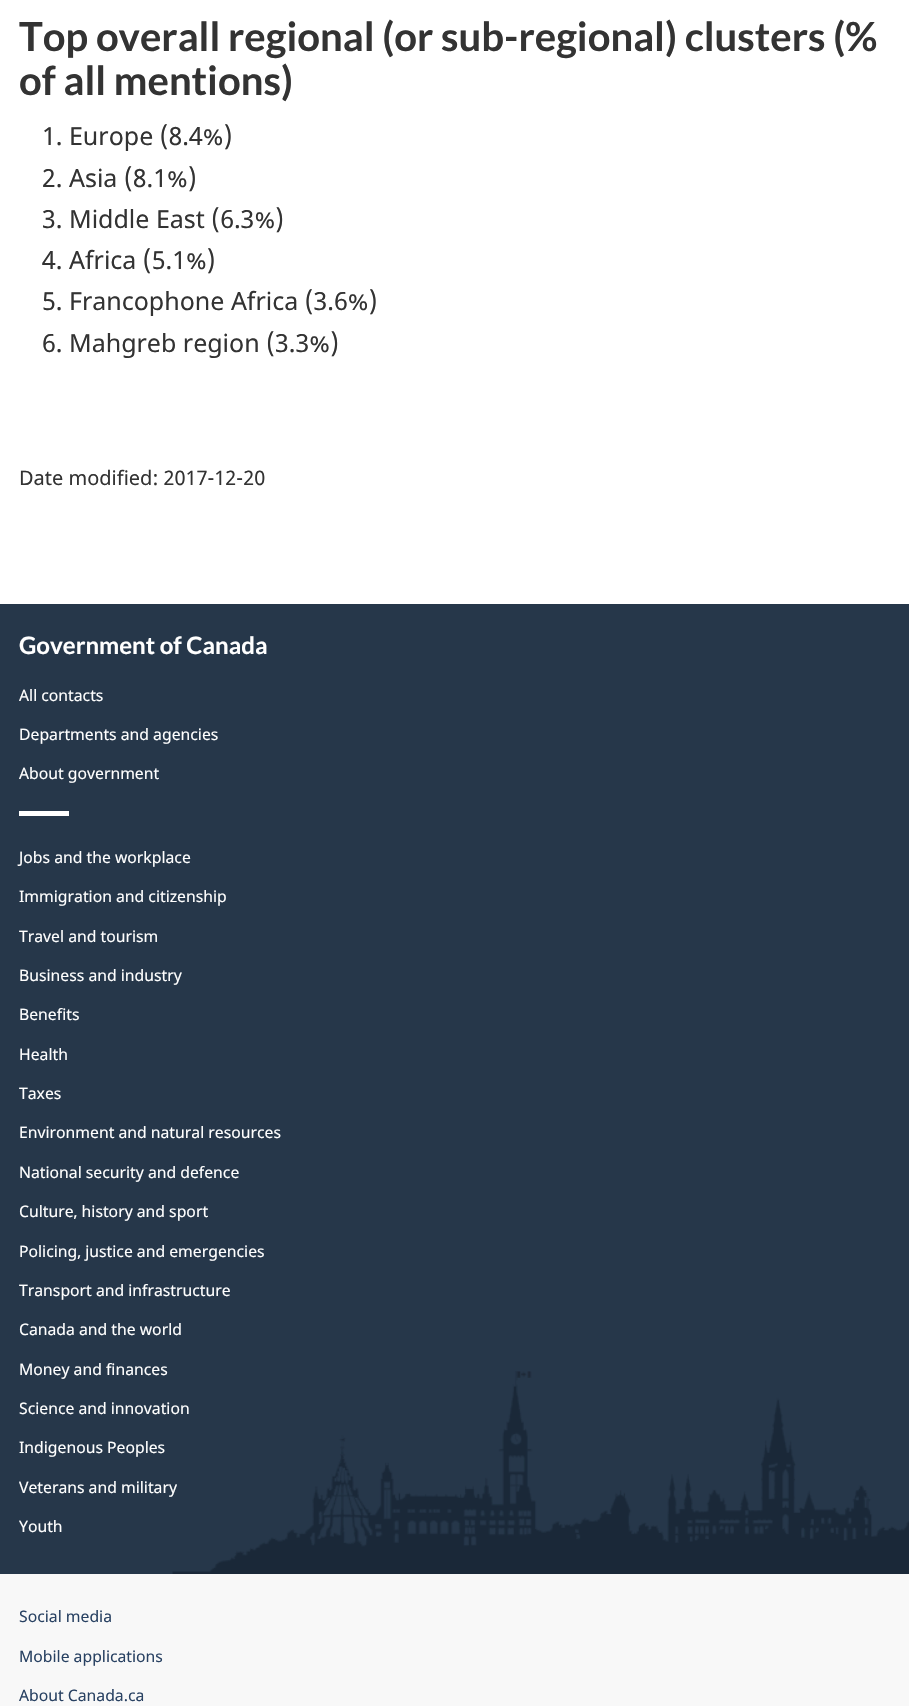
void draw(SkCanvas* canvas) {
    SkPaint paint;
    paint.setAntiAlias(true);
    auto face = [&](const char* family, int weight, float size, bool italic = false) {
        SkFontStyle style(weight, SkFontStyle::kNormal_Width,
            italic ? SkFontStyle::kItalic_Slant : SkFontStyle::kUpright_Slant);
        SkFont result(fontMgr->matchFamilyStyle(family, style), size);
        result.setSubpixel(true);
        return result;
    };
    auto write = [&](const char* s, float x, float y, const SkFont& font, SkColor color) {
        SkPaint ink(SkColor4f::FromColor(color));
        ink.setAntiAlias(true);
        canvas->drawString(s, x, y, font, ink);
    };
    auto block = [&](float x, float y, float w, float h, SkColor color) {
        SkPaint ink(SkColor4f::FromColor(color));
        ink.setAntiAlias(true);
        canvas->drawRect(SkRect::MakeXYWH(x, y, w, h), ink);
    };
    auto paste = [&](const char* path, float x, float y, float w, float h) {
        auto image = SkImages::DeferredFromEncodedData(SkData::MakeFromFileName(path));
        canvas->drawImageRect(image, SkRect::MakeXYWH(x, y, w, h), SkSamplingOptions());
    };
    canvas->clear(SK_ColorWHITE);
    auto kFont1 = face("Lato", 700, 40);
    write("Top overall regional (or sub-regional) clusters (%", 19, 51, kFont1, SkColorSetRGB(51, 51, 51));
    write("of all mentions)", 19, 95, kFont1, SkColorSetRGB(51, 51, 51));
    auto kFont2 = face("Noto Sans", 400, 25);
    write("1. Europe (8.4%)", 42, 145, kFont2, SkColorSetRGB(51, 51, 51));
    write("2. Asia (8.1%)", 42, 187, kFont2, SkColorSetRGB(51, 51, 51));
    write("3. Middle East (6.3%)", 42, 228, kFont2, SkColorSetRGB(51, 51, 51));
    write("4. Africa (5.1%)", 42, 269, kFont2, SkColorSetRGB(51, 51, 51));
    write("5. Francophone Africa (3.6%)", 42, 310, kFont2, SkColorSetRGB(51, 51, 51));
    write("6. Mahgreb region (3.3%)", 42, 352, kFont2, SkColorSetRGB(51, 51, 51));
    auto kFont3 = face("Noto Sans", 400, 20);
    write("Date modified: 2017-12-20", 19, 485, kFont3, SkColorSetRGB(51, 51, 51));
    block(0, 604, 909, 970, SkColorSetRGB(38, 55, 74));
    paste("pic1.png", 172, 1371, 737, 203);
    auto kFont4 = face("Lato", 700, 24);
    write("Government of Canada", 19, 654, kFont4, SK_ColorWHITE);
    auto kFont5 = face("Noto Sans", 400, 15.75f);
    write("All contacts", 19, 701, kFont5, SK_ColorWHITE);
    write("Departments and agencies", 19, 740, kFont5, SK_ColorWHITE);
    write("About government", 19, 779, kFont5, SK_ColorWHITE);
    block(19, 811, 50, 5, SK_ColorWHITE);
    write("Jobs and the workplace", 19, 863, kFont5, SK_ColorWHITE);
    write("Immigration and citizenship", 19, 902, kFont5, SK_ColorWHITE);
    write("Travel and tourism", 19, 942, kFont5, SK_ColorWHITE);
    write("Business and industry", 19, 981, kFont5, SK_ColorWHITE);
    write("Benefits", 19, 1020, kFont5, SK_ColorWHITE);
    write("Health", 19, 1060, kFont5, SK_ColorWHITE);
    write("Taxes", 19, 1099, kFont5, SK_ColorWHITE);
    write("Environment and natural resources", 19, 1138, kFont5, SK_ColorWHITE);
    write("National security and defence", 19, 1178, kFont5, SK_ColorWHITE);
    write("Culture, history and sport", 19, 1217, kFont5, SK_ColorWHITE);
    write("Policing, justice and emergencies", 19, 1257, kFont5, SK_ColorWHITE);
    write("Transport and infrastructure", 19, 1296, kFont5, SK_ColorWHITE);
    write("Canada and the world", 19, 1335, kFont5, SK_ColorWHITE);
    write("Money and finances", 19, 1375, kFont5, SK_ColorWHITE);
    write("Science and innovation", 19, 1414, kFont5, SK_ColorWHITE);
    write("Indigenous Peoples", 19, 1453, kFont5, SK_ColorWHITE);
    write("Veterans and military", 19, 1493, kFont5, SK_ColorWHITE);
    write("Youth", 19, 1532, kFont5, SK_ColorWHITE);
    block(0, 1574, 909, 132, SkColorSetRGB(248, 248, 248));
    write("Social media", 19, 1622, kFont5, SkColorSetRGB(40, 65, 98));
    write("Mobile applications", 19, 1662, kFont5, SkColorSetRGB(40, 65, 98));
    write("About Canada.ca", 19, 1701, kFont5, SkColorSetRGB(40, 65, 98));
}
